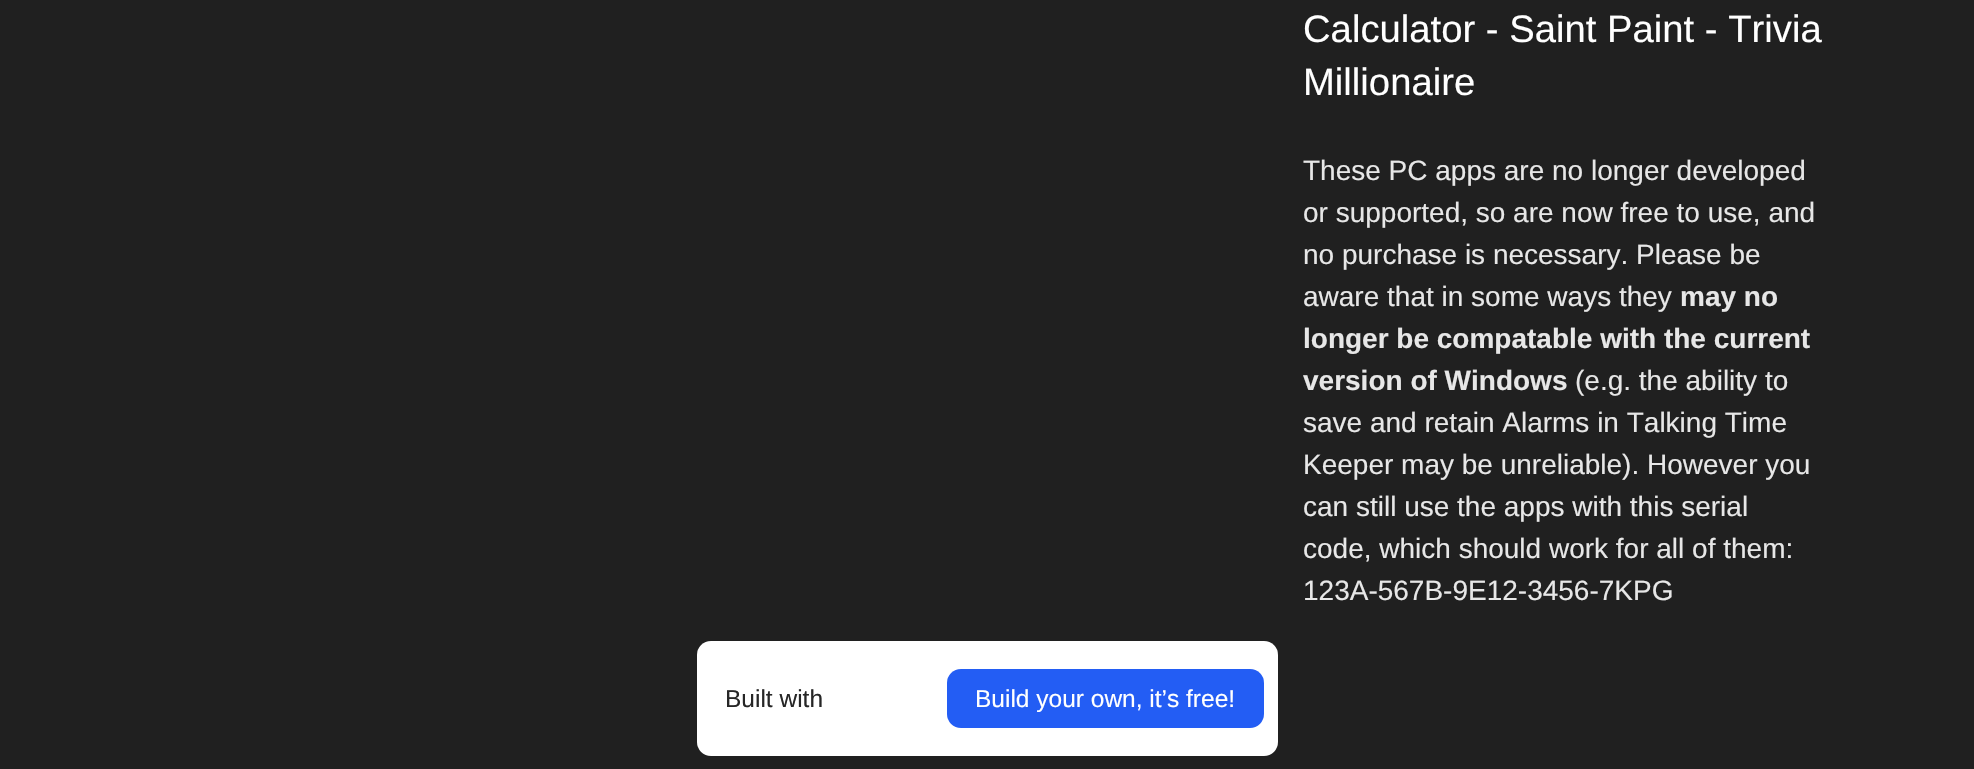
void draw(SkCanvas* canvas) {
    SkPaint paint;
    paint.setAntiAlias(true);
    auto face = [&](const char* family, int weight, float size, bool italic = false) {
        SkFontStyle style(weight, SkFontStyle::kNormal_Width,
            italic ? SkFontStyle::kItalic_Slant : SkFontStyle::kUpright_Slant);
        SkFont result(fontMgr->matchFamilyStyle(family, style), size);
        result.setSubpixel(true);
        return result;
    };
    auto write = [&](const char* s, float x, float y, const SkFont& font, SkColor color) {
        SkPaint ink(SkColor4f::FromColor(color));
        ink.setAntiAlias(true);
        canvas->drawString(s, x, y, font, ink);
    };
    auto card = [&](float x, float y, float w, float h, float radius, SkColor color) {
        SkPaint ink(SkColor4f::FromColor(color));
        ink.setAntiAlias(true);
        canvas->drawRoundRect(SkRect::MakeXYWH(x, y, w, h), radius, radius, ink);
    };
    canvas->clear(SkColorSetRGB(32, 32, 32));
    auto kFont1 = face("Liberation Sans", 400, 38.25f);
    write("Calculator - Saint Paint - Trivia", 1303, 42, kFont1, SK_ColorWHITE);
    write("Millionaire", 1303, 95, kFont1, SK_ColorWHITE);
    auto kFont2 = face("Liberation Sans", 400, 28);
    write("These PC apps are no longer developed", 1303, 180, kFont2, SkColorSetRGB(231, 231, 231));
    write("or supported, so are now free to use, and", 1303, 222, kFont2, SkColorSetRGB(231, 231, 231));
    write("no purchase is necessary. Please be", 1303, 264, kFont2, SkColorSetRGB(231, 231, 231));
    write("aware that in some ways they", 1303, 306, kFont2, SkColorSetRGB(231, 231, 231));
    auto kFont3 = face("Liberation Sans", 700, 28);
    write("may no", 1680, 306, kFont3, SkColorSetRGB(231, 231, 231));
    write("longer be compatable with the current", 1303, 348, kFont3, SkColorSetRGB(231, 231, 231));
    write("version of Windows", 1303, 390, kFont3, SkColorSetRGB(231, 231, 231));
    write("(e.g. the ability to", 1575, 390, kFont2, SkColorSetRGB(231, 231, 231));
    write("save and retain Alarms in Talking Time", 1303, 432, kFont2, SkColorSetRGB(231, 231, 231));
    write("Keeper may be unreliable). However you", 1303, 474, kFont2, SkColorSetRGB(231, 231, 231));
    write("can still use the apps with this serial", 1303, 516, kFont2, SkColorSetRGB(231, 231, 231));
    write("code, which should work for all of them:", 1303, 558, kFont2, SkColorSetRGB(231, 231, 231));
    write("123A-567B-9E12-3456-7KPG", 1303, 600, kFont2, SkColorSetRGB(231, 231, 231));
    card(697, 641, 581, 115, 14, SK_ColorWHITE);
    auto kFont4 = face("Liberation Sans", 400, 24.5f);
    write("Built with", 725, 707, kFont4, SkColorSetRGB(38, 38, 38));
    card(947, 669, 317, 59, 14, SkColorSetRGB(35, 93, 244));
    write("Build your own, it’s free!", 975, 707, kFont4, SK_ColorWHITE);
}
